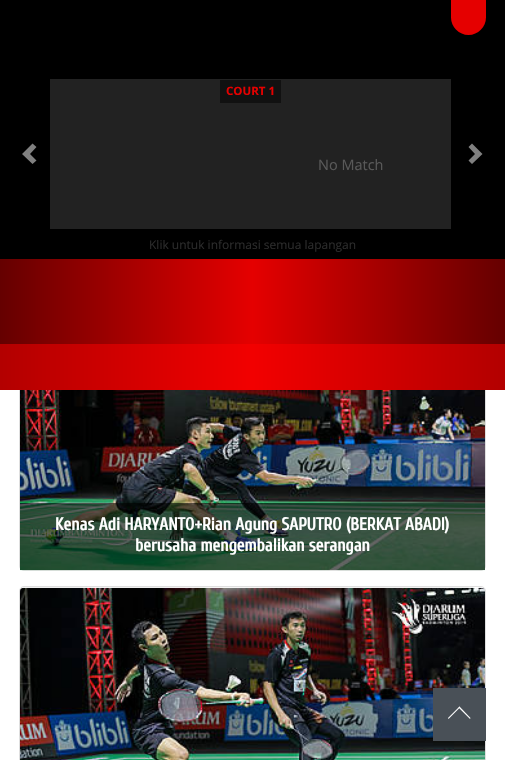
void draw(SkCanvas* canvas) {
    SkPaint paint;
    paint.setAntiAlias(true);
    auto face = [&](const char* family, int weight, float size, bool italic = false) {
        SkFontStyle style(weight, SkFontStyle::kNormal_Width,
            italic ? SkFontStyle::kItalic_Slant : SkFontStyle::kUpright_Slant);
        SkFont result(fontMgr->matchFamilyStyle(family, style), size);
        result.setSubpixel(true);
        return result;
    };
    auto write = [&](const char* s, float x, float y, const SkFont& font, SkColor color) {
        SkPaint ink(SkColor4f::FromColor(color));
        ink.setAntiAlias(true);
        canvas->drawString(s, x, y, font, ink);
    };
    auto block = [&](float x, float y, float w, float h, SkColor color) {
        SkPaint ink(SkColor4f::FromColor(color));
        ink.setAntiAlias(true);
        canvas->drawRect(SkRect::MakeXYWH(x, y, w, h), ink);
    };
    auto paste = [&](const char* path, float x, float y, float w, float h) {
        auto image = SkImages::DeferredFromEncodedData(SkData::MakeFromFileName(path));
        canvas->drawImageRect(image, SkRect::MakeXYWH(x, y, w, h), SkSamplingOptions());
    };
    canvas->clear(SK_ColorWHITE);
    paint.setStyle(SkPaint::kStroke_Style);
    paint.setStrokeWidth(1);
    paint.setColor(SkColorSetRGB(223, 223, 223));
    canvas->drawRoundRect(SkRect::MakeXYWH(19.5f, 315.5f, 466, 255), 4.5f, 4.5f, paint);
    paint.setStyle(SkPaint::kFill_Style);
    {
        const SkColor colors[] = {SkColorSetRGB(101, 0, 0), SkColorSetRGB(229, 0, 0), SkColorSetRGB(101, 0, 0)};
        const float stops[] = {0, 0.5f, 1};
        const SkPoint ends[] = {{0, 195}, {505, 195}};
        paint.setShader(SkGradientShader::MakeLinear(ends, colors, stops, 3, SkTileMode::kClamp));
        paint.setAlpha(255);
    }
    canvas->drawRect(SkRect::MakeXYWH(0, 259, 505, 131), paint);
    block(0, 0, 505, 259, SK_ColorBLACK);
    paint.setShader(nullptr);
    paint.setColor(SkColorSetRGB(229, 0, 0));
    canvas->drawPath(SkPathBuilder().moveTo(451, 0).lineTo(486, 0).lineTo(486, 17.5f).cubicTo(486, 27, 478, 35, 468.5f, 35).cubicTo(459, 35, 451, 27, 451, 17.5f).close().detach(), paint);
    paint.setColor(SkColorSetRGB(128, 128, 128));
    canvas->drawPath(SkPathBuilder().moveTo(32.5f, 143.5f).lineTo(22, 154).lineTo(32.5f, 164).lineTo(36.5f, 160.5f).lineTo(30, 154).lineTo(36.5f, 147).close().detach(), paint);
    block(50, 79, 401, 150, SkColorSetRGB(34, 34, 34));
    block(220, 80, 61, 23, SkColorSetRGB(17, 17, 17));
    auto kFont1 = face("Open Sans", 700, 11.5f);
    write("COURT 1", 226, 95, kFont1, SkColorSetRGB(229, 0, 0));
    auto kFont2 = face("Open Sans", 400, 14.5f);
    write("No Match", 318, 170, kFont2, SkColorSetRGB(89, 89, 89));
    canvas->drawPath(SkPathBuilder().moveTo(472, 143.5f).lineTo(468.5f, 147).lineTo(475, 154).lineTo(468.5f, 160.5f).lineTo(472, 164).lineTo(482.5f, 154).close().detach(), paint);
    auto kFont3 = face("Open Sans", 400, 12);
    write("Klik untuk informasi semua lapangan", 149, 249, kFont3, SkColorSetRGB(43, 43, 43));
    block(0, 344, 505, 46, SkColorSetARGB(128, 255, 0, 0));
    paste("pic1.png", 20, 390, 465, 181);
    block(20, 503, 465, 67, SkColorSetARGB(153, 0, 0, 0));
    auto kFont4 = face("Cuprum", 700, 17.5f);
    write("Kenas Adi HARYANTO+Rian Agung SAPUTRO (BERKAT ABADI)", 55, 530, kFont4, SK_ColorWHITE);
    write("berusaha mengembalikan serangan", 135, 551, kFont4, SK_ColorWHITE);
    paint.setStyle(SkPaint::kStroke_Style);
    paint.setColor(SkColorSetRGB(223, 223, 223));
    canvas->drawRoundRect(SkRect::MakeXYWH(19.5f, 586.5f, 466, 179), 4.5f, 4.5f, paint);
    paste("pic2.png", 20, 587, 465, 173);
    block(433, 688, 53, 53, SkColorSetRGB(73, 80, 87));
    paint.setStyle(SkPaint::kFill_Style);
    paint.setColor(SK_ColorWHITE);
    canvas->drawPath(SkPathBuilder().moveTo(459.5f, 706.5f).lineTo(470.5f, 718).lineTo(470, 719).lineTo(458.5f, 707.5f).close().detach(), paint);
    canvas->drawPath(SkPathBuilder().moveTo(459.5f, 706.5f).lineTo(460, 707.5f).lineTo(448.5f, 719).lineTo(448, 718).close().detach(), paint);
}
